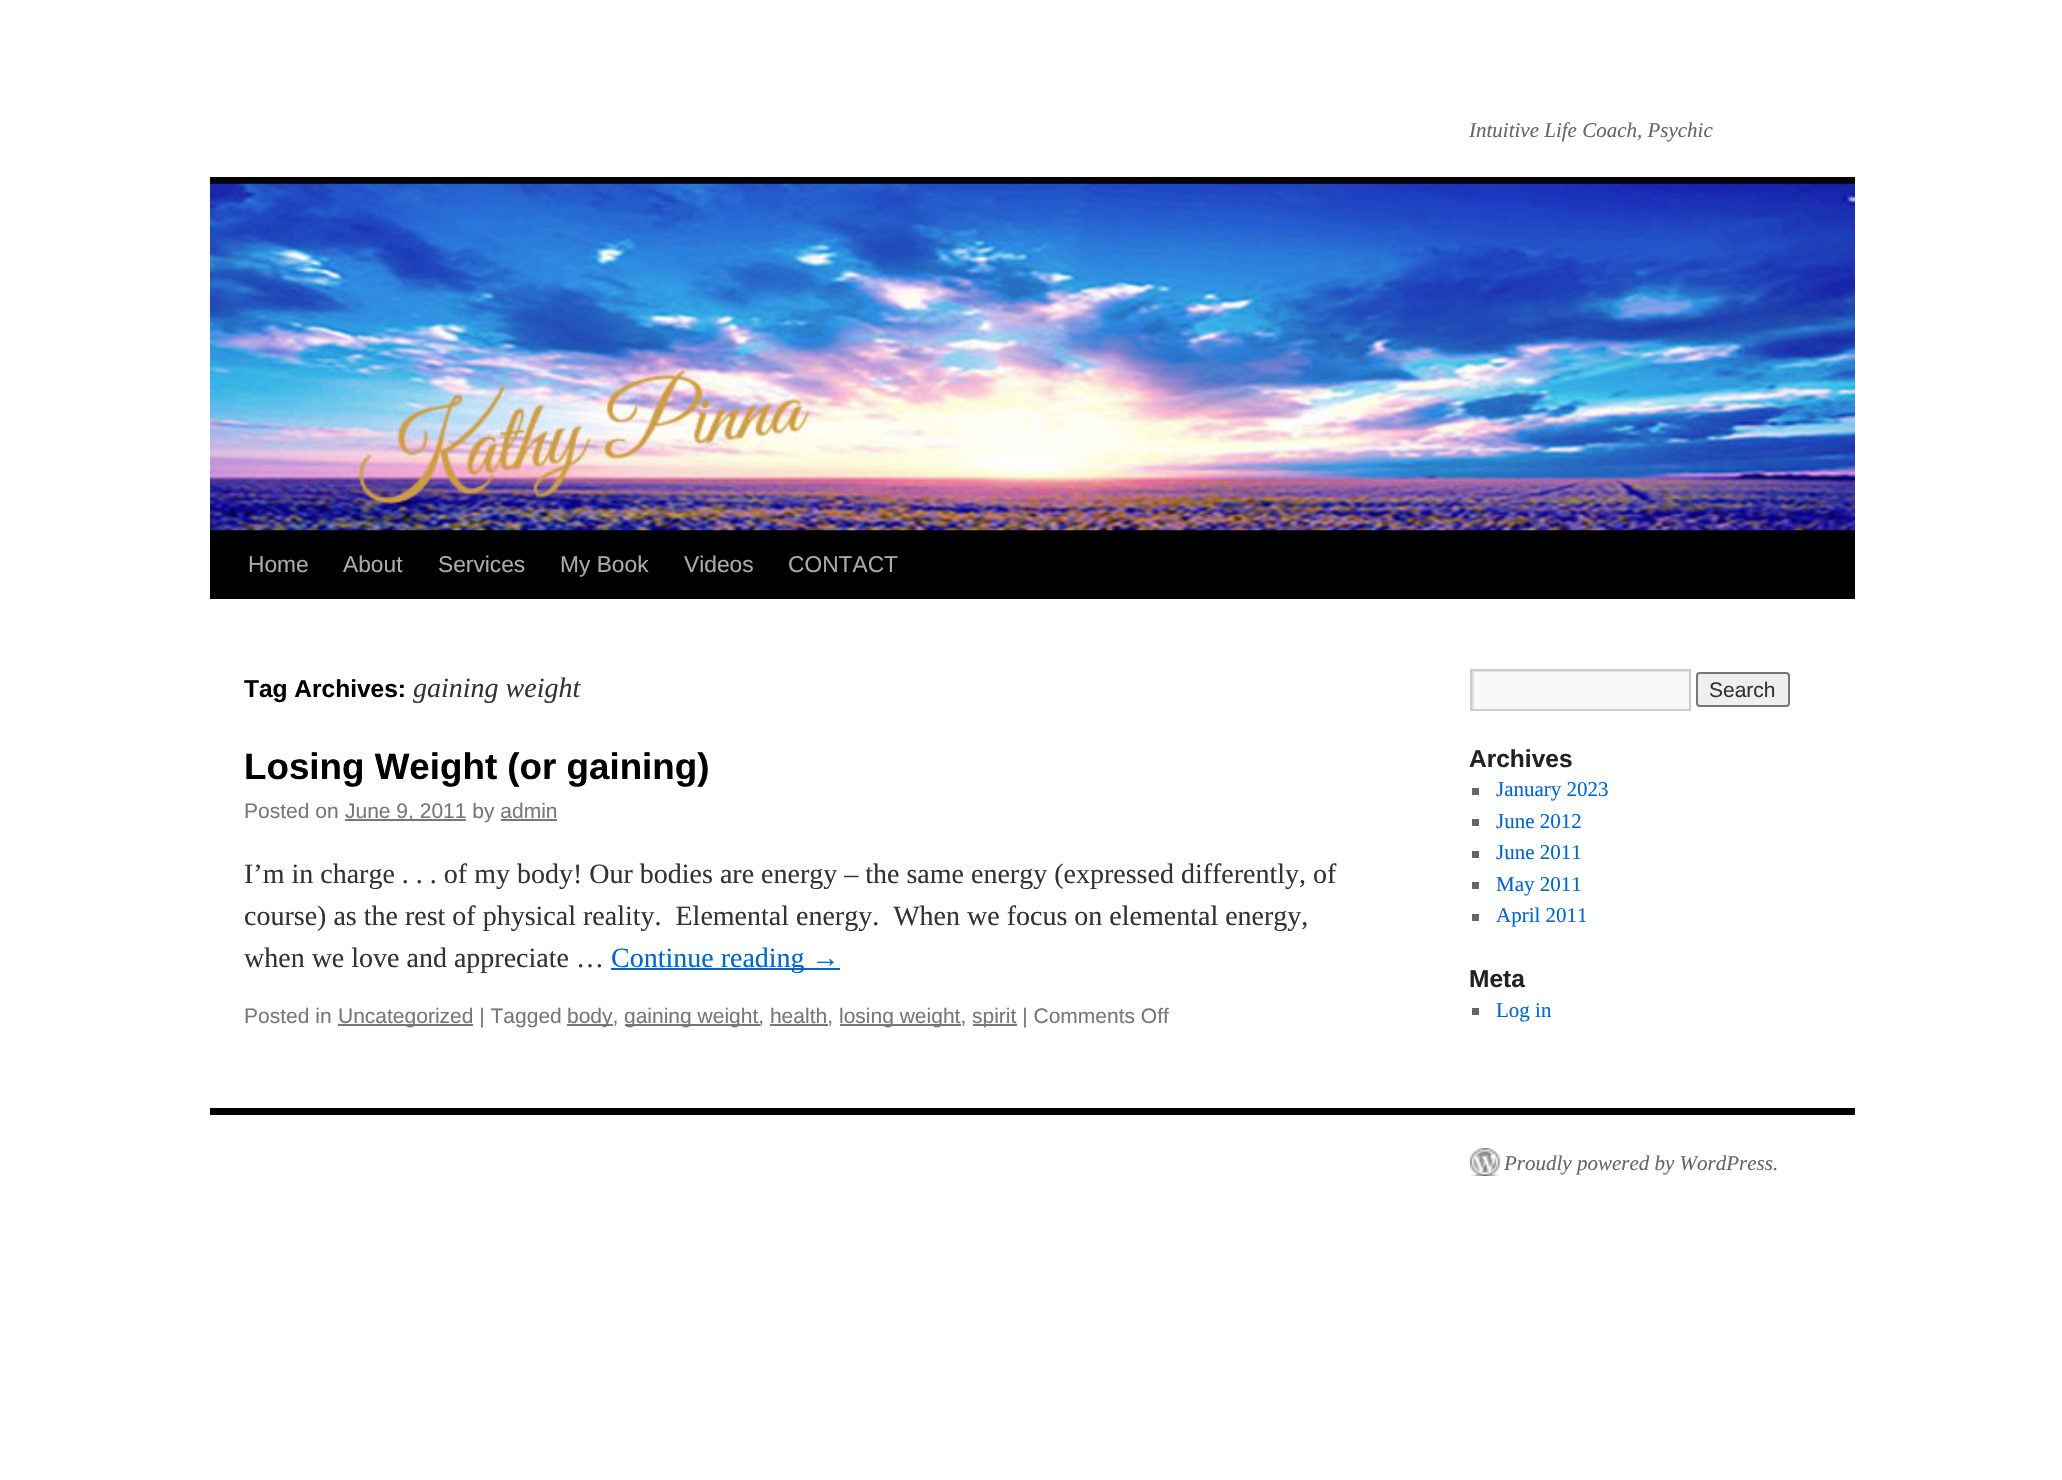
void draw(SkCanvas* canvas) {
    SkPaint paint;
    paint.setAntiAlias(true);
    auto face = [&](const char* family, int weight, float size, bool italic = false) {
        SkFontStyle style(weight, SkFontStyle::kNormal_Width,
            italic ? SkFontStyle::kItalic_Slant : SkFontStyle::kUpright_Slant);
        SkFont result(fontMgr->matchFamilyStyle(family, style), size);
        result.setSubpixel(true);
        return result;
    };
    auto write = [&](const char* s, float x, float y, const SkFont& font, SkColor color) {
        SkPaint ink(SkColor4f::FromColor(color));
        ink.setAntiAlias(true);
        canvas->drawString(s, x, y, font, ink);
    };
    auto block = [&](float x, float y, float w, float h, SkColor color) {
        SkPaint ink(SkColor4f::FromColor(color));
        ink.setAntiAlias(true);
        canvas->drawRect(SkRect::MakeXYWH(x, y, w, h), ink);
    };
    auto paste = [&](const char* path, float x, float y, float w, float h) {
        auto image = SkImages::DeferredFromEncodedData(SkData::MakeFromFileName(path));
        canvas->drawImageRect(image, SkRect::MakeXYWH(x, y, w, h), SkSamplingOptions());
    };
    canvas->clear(SK_ColorWHITE);
    auto kFont1 = face("Liberation Serif", 400, 21, true);
    write("Intuitive Life Coach, Psychic", 1469, 137, kFont1, SkColorSetRGB(102, 102, 102));
    block(210, 177, 1645, 7, SK_ColorBLACK);
    block(210, 530, 1645, 69, SK_ColorBLACK);
    paste("pic1.png", 210, 183, 1645, 348);
    auto kFont2 = face("Liberation Sans", 400, 22.75f);
    write("Home", 248, 572, kFont2, SkColorSetRGB(170, 170, 170));
    write("About", 343, 572, kFont2, SkColorSetRGB(170, 170, 170));
    write("Services", 438, 572, kFont2, SkColorSetRGB(170, 170, 170));
    write("My Book", 560, 572, kFont2, SkColorSetRGB(170, 170, 170));
    write("Videos", 684, 572, kFont2, SkColorSetRGB(170, 170, 170));
    write("CONTACT", 788, 572, kFont2, SkColorSetRGB(170, 170, 170));
    auto kFont3 = face("Liberation Sans", 700, 24.5f);
    write("Tag Archives:", 244, 697, kFont3, SK_ColorBLACK);
    auto kFont4 = face("Liberation Serif", 400, 28, true);
    write("gaining weight", 413, 697, kFont4, SkColorSetRGB(51, 51, 51));
    auto kFont5 = face("Liberation Sans", 700, 36.75f);
    write("Losing Weight (or gaining)", 244, 779, kFont5, SK_ColorBLACK);
    auto kFont6 = face("Liberation Sans", 400, 21);
    write("Posted on", 244, 818, kFont6, SkColorSetRGB(119, 119, 119));
    block(345, 819, 121, 2, SkColorSetRGB(119, 119, 119));
    write("June 9, 2011 by admin", 345, 818, kFont6, SkColorSetRGB(119, 119, 119));
    block(501, 819, 56, 2, SkColorSetRGB(119, 119, 119));
    auto kFont7 = face("Liberation Serif", 400, 28);
    write("I’m in charge . . . of my body! Our bodies are energy – the same energy (expressed differently, of", 244, 883, kFont7, SkColorSetRGB(51, 51, 51));
    write("course) as the rest of physical reality.  Elemental energy.  When we focus on elemental energy,", 244, 925, kFont7, SkColorSetRGB(51, 51, 51));
    write("when we love and appreciate …", 244, 967, kFont7, SkColorSetRGB(51, 51, 51));
    block(611, 968, 229, 2, SkColorSetRGB(0, 102, 204));
    write("Continue reading →", 611, 967, kFont7, SkColorSetRGB(0, 102, 204));
    write("Posted in", 244, 1023, kFont6, SkColorSetRGB(119, 119, 119));
    block(338, 1024, 135, 2, SkColorSetRGB(119, 119, 119));
    write("Uncategorized | Tagged", 338, 1023, kFont6, SkColorSetRGB(119, 119, 119));
    block(567, 1024, 46, 2, SkColorSetRGB(119, 119, 119));
    write("body,", 567, 1023, kFont6, SkColorSetRGB(119, 119, 119));
    block(625, 1024, 135, 2, SkColorSetRGB(119, 119, 119));
    write("gaining weight, health,", 624, 1023, kFont6, SkColorSetRGB(119, 119, 119));
    block(770, 1024, 58, 2, SkColorSetRGB(119, 119, 119));
    block(840, 1024, 121, 2, SkColorSetRGB(119, 119, 119));
    write("losing weight,", 839, 1023, kFont6, SkColorSetRGB(119, 119, 119));
    block(973, 1024, 44, 2, SkColorSetRGB(119, 119, 119));
    write("spirit | Comments Off", 972, 1023, kFont6, SkColorSetRGB(119, 119, 119));
    block(1474, 672, 215, 37, SkColorSetRGB(249, 249, 249));
    canvas->save();
    canvas->clipRect(SkRect::MakeXYWH(1472, 670, 217, 39));
    paint.setColor(SkColorSetRGB(224, 224, 224));
    canvas->drawPath(SkPathBuilder(SkPathFillType::kEvenOdd).moveTo(1298, 497).lineTo(1862, 497).lineTo(1862, 882).lineTo(1298, 882).close().moveTo(1474, 672).lineTo(1690, 672).lineTo(1690, 710).lineTo(1474, 710).close().detach(), paint);
    canvas->restore();
    paint.setStyle(SkPaint::kStroke_Style);
    paint.setStrokeWidth(2);
    paint.setColor(SkColorSetRGB(204, 204, 204));
    canvas->drawRect(SkRect::MakeXYWH(1471, 670, 219, 40), paint);
    paint.setStyle(SkPaint::kFill_Style);
    paint.setColor(SkColorSetRGB(239, 239, 239));
    canvas->drawRoundRect(SkRect::MakeXYWH(1697, 673, 92, 33), 3, 3, paint);
    paint.setStyle(SkPaint::kStroke_Style);
    paint.setColor(SkColorSetRGB(118, 118, 118));
    canvas->drawRoundRect(SkRect::MakeXYWH(1697, 673, 92, 33), 3, 3, paint);
    write("Search", 1709, 697, kFont6, SkColorSetRGB(51, 51, 51));
    write("Archives", 1469, 767, kFont3, SkColorSetRGB(34, 34, 34));
    block(1472, 788, 7, 7, SkColorSetRGB(102, 102, 102));
    auto kFont8 = face("Liberation Serif", 400, 21);
    write("January 2023", 1496, 796, kFont8, SkColorSetRGB(0, 102, 204));
    block(1472, 819, 7, 7, SkColorSetRGB(102, 102, 102));
    write("June 2012", 1496, 828, kFont8, SkColorSetRGB(0, 102, 204));
    block(1472, 851, 7, 7, SkColorSetRGB(102, 102, 102));
    write("June 2011", 1496, 859, kFont8, SkColorSetRGB(0, 102, 204));
    block(1472, 882, 7, 7, SkColorSetRGB(102, 102, 102));
    write("May 2011", 1496, 891, kFont8, SkColorSetRGB(0, 102, 204));
    block(1472, 914, 7, 7, SkColorSetRGB(102, 102, 102));
    write("April 2011", 1496, 922, kFont8, SkColorSetRGB(0, 102, 204));
    write("Meta", 1469, 987, kFont3, SkColorSetRGB(34, 34, 34));
    block(1472, 1008, 7, 7, SkColorSetRGB(102, 102, 102));
    write("Log in", 1496, 1017, kFont8, SkColorSetRGB(0, 102, 204));
    block(210, 1108, 1645, 7, SK_ColorBLACK);
    paste("pic2.png", 1470, 1148, 30, 28);
    write("Proudly powered by WordPress.", 1504, 1170, kFont1, SkColorSetRGB(102, 102, 102));
}
